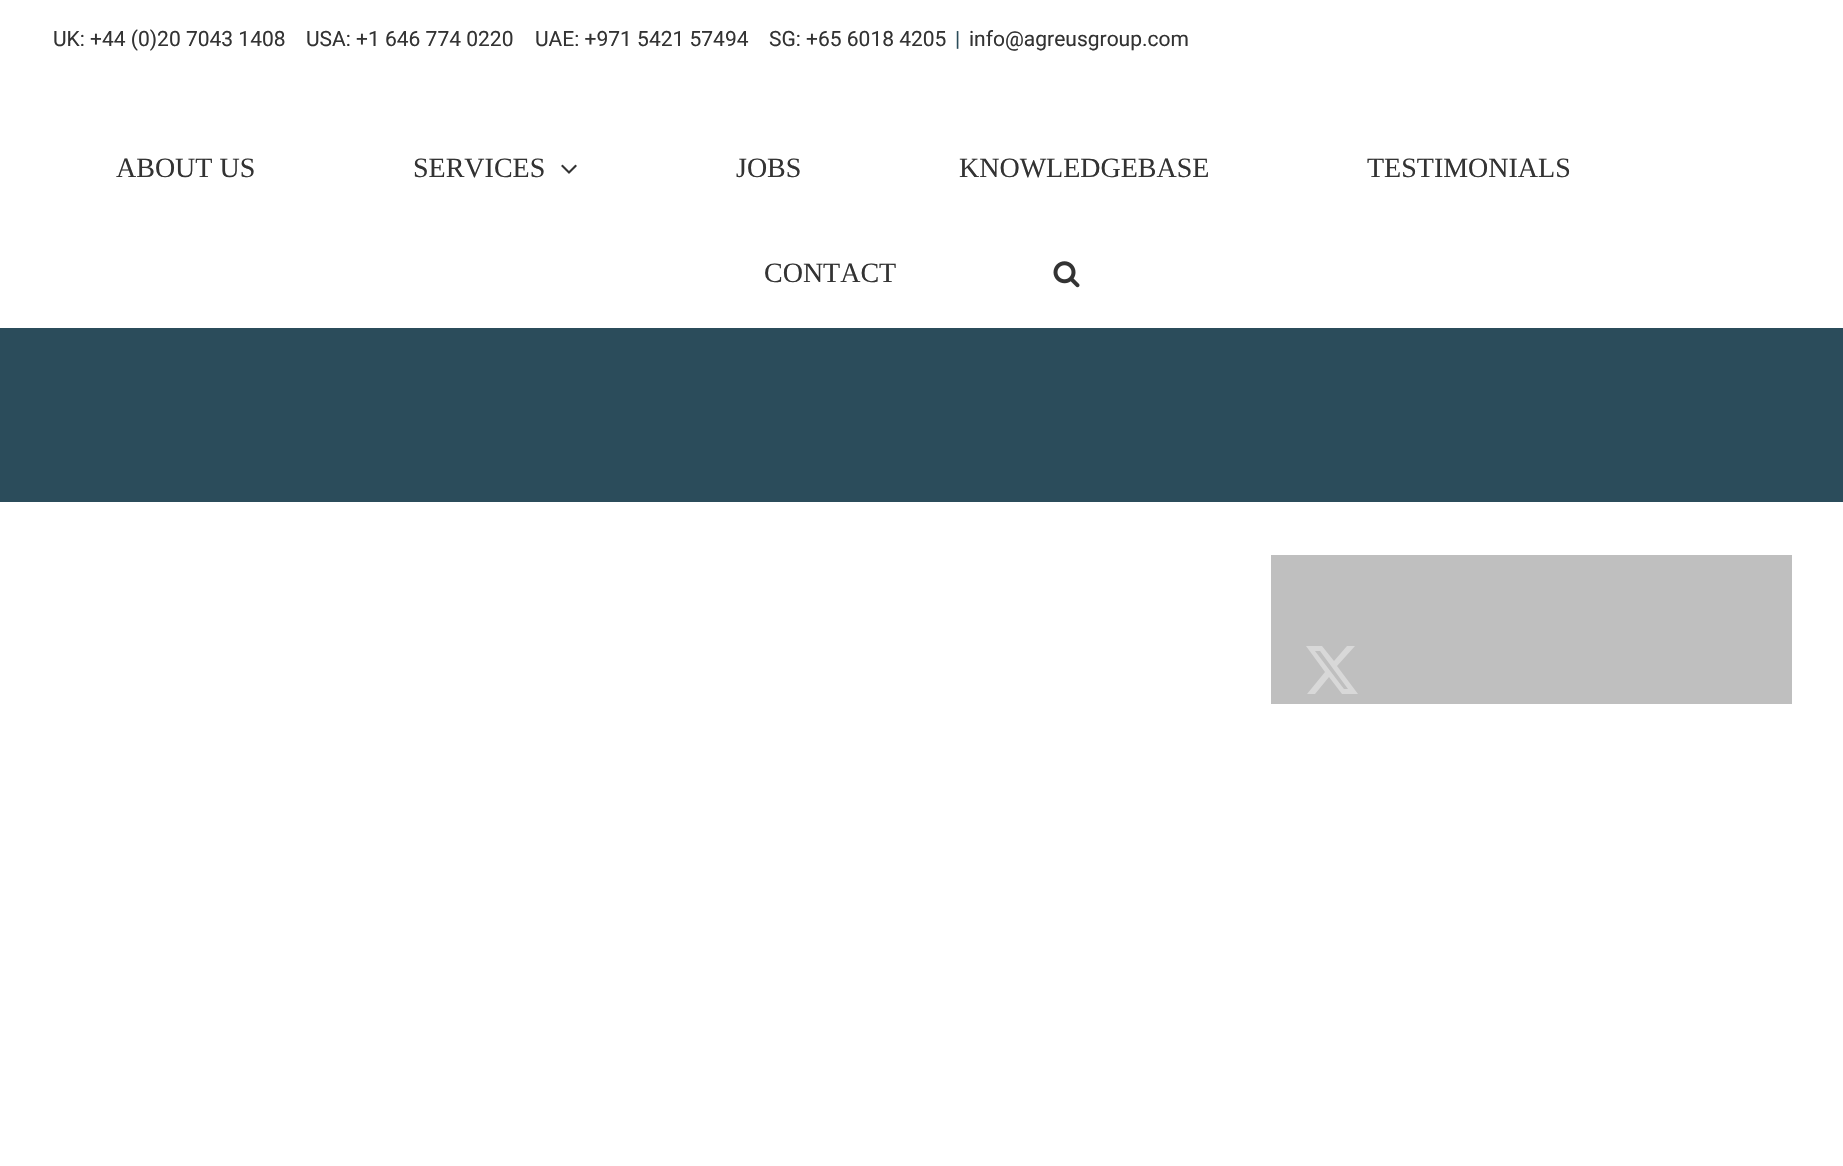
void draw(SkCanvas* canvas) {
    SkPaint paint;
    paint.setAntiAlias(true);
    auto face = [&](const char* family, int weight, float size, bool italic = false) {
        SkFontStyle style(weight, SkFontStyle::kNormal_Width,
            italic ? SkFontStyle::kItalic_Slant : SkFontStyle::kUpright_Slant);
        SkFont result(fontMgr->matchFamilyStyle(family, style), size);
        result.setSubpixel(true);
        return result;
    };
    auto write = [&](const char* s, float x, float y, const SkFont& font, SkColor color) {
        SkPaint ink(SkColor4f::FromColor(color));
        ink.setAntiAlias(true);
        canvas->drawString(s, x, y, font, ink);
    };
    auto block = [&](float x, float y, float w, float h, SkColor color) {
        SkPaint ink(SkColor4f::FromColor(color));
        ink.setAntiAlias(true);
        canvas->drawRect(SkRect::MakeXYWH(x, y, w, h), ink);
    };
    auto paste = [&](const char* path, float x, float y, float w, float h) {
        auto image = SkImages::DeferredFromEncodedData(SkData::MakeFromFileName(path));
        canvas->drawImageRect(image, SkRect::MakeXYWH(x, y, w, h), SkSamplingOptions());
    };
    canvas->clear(SK_ColorWHITE);
    auto kFont1 = face("Roboto", 400, 21);
    write("UK: +44 (0)20 7043 1408", 53, 46, kFont1, SkColorSetRGB(51, 51, 51));
    write("USA: +1 646 774 0220", 306, 46, kFont1, SkColorSetRGB(51, 51, 51));
    write("UAE: +971 5421 57494", 535, 46, kFont1, SkColorSetRGB(51, 51, 51));
    write("SG: +65 6018 4205", 769, 46, kFont1, SkColorSetRGB(51, 51, 51));
    write("|", 955, 46, kFont1, SkColorSetRGB(43, 76, 90));
    write("info@agreusgroup.com", 969, 46, kFont1, SkColorSetRGB(51, 51, 51));
    auto kFont2 = face("Liberation Serif", 400, 28);
    write("ABOUT US", 116, 177, kFont2, SkColorSetRGB(51, 51, 51));
    write("SERVICES", 413, 177, kFont2, SkColorSetRGB(51, 51, 51));
    paste("pic1.png", 561, 164, 16, 10);
    write("JOBS", 736, 177, kFont2, SkColorSetRGB(51, 51, 51));
    write("KNOWLEDGEBASE", 959, 177, kFont2, SkColorSetRGB(51, 51, 51));
    write("TESTIMONIALS", 1367, 177, kFont2, SkColorSetRGB(51, 51, 51));
    write("CONTACT", 764, 282, kFont2, SkColorSetRGB(51, 51, 51));
    paste("pic2.png", 1053, 261, 27, 27);
    block(0, 328, 1843, 174, SkColorSetRGB(43, 76, 91));
    block(1271, 555, 521, 149, SkColorSetRGB(191, 191, 191));
    paint.setColor(SkColorSetRGB(216, 216, 216));
    canvas->drawPath(SkPathBuilder().moveTo(1347, 646).lineTo(1355, 646).lineTo(1337, 666).lineTo(1358, 694).lineTo(1342, 694).lineTo(1329, 677).lineTo(1315, 694).lineTo(1307, 694).lineTo(1325, 672).lineTo(1306, 646).lineTo(1322, 646).lineTo(1334, 661).close().moveTo(1344, 689).lineTo(1348, 689).lineTo(1320, 651).lineTo(1315, 651).close().detach(), paint);
}
